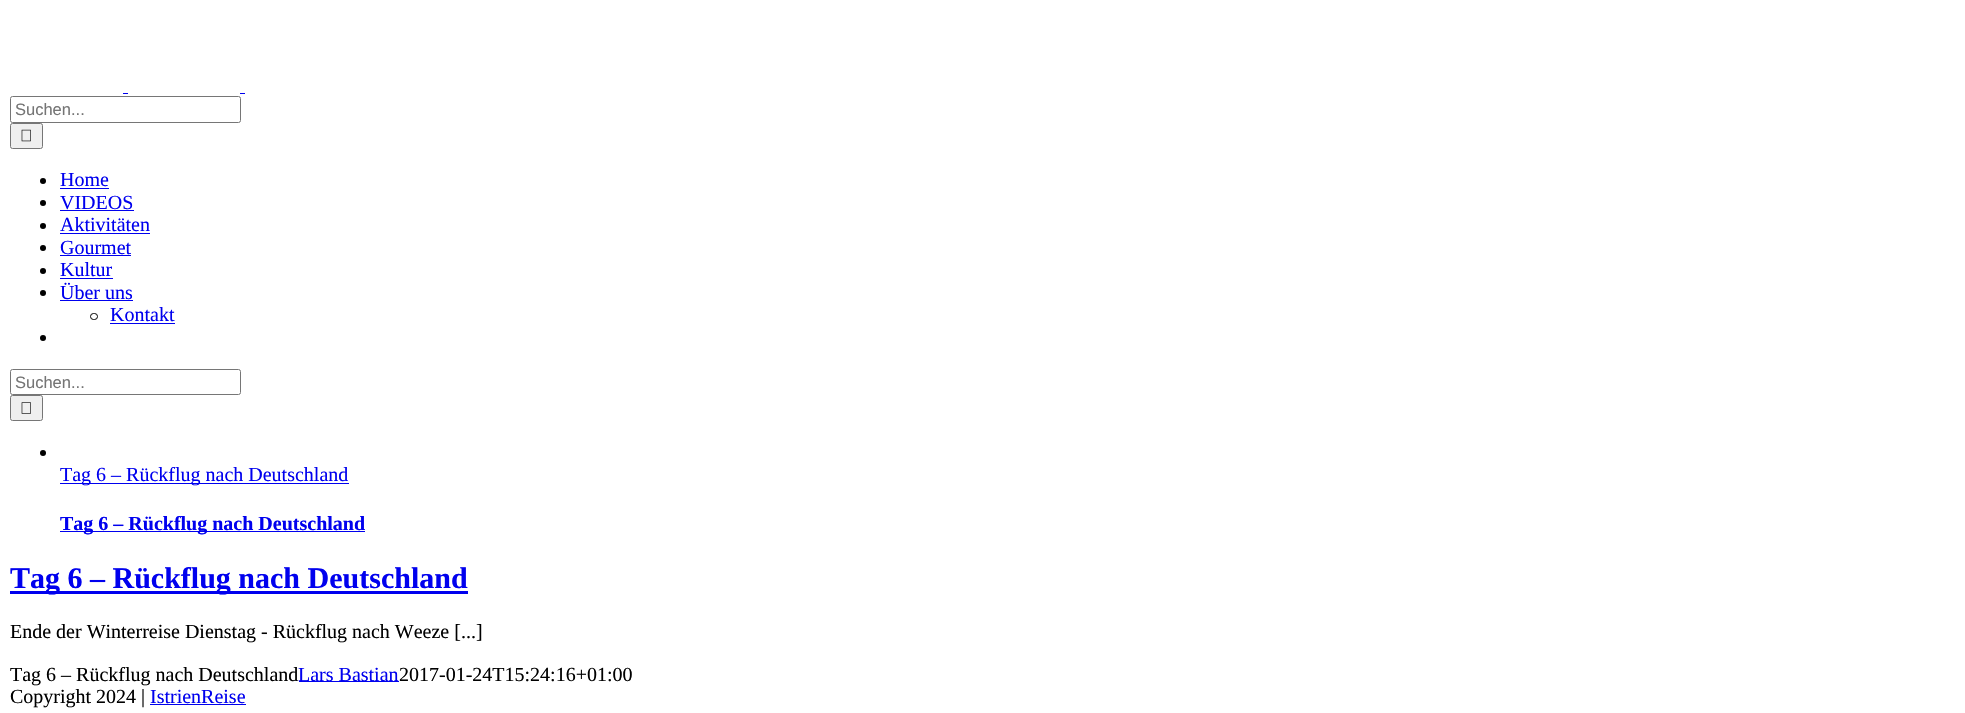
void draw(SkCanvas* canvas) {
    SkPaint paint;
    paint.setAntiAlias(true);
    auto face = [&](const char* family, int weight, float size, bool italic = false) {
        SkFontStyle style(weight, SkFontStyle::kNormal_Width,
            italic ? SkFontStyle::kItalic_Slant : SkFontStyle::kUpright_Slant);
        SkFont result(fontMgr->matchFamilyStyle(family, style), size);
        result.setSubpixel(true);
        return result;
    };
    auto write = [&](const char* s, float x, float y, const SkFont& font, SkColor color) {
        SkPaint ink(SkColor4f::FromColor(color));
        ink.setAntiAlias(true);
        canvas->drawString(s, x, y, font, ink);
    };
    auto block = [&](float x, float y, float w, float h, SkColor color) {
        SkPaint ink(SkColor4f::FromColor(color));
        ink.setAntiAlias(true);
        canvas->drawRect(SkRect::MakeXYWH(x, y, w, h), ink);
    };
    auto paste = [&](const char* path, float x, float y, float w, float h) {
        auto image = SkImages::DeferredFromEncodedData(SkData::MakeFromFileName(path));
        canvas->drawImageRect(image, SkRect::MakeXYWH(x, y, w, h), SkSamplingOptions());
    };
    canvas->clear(SK_ColorWHITE);
    block(123, 93, 5, 1, SkColorSetRGB(0, 0, 238));
    block(240, 93, 5, 1, SkColorSetRGB(0, 0, 238));
    paint.setStyle(SkPaint::kStroke_Style);
    paint.setStrokeWidth(1);
    paint.setColor(SkColorSetRGB(118, 118, 118));
    canvas->drawRoundRect(SkRect::MakeXYWH(10.5f, 96.5f, 230, 26), 2, 2, paint);
    auto kFont1 = face("Liberation Sans", 400, 16.5f);
    write("Suchen...", 15, 115, kFont1, SkColorSetRGB(117, 117, 117));
    paint.setStyle(SkPaint::kFill_Style);
    paint.setColor(SkColorSetRGB(239, 239, 239));
    canvas->drawRoundRect(SkRect::MakeXYWH(10.5f, 123.5f, 32, 25), 2, 2, paint);
    paint.setStyle(SkPaint::kStroke_Style);
    paint.setColor(SkColorSetRGB(118, 118, 118));
    canvas->drawRoundRect(SkRect::MakeXYWH(10.5f, 123.5f, 32, 25), 2, 2, paint);
    paste("pic1.png", 21, 129, 10, 13);
    paint.setStyle(SkPaint::kFill_Style);
    paint.setColor(SK_ColorBLACK);
    canvas->drawCircle(43, 181, 3, paint);
    auto kFont2 = face("Liberation Serif", 400, 20);
    write("Home", 60, 186, kFont2, SkColorSetRGB(0, 0, 238));
    block(60, 188, 49, 1, SkColorSetRGB(0, 0, 238));
    canvas->drawCircle(43, 203, 3, paint);
    write("VIDEOS", 60, 209, kFont2, SkColorSetRGB(0, 0, 238));
    block(60, 210, 74, 1, SkColorSetRGB(0, 0, 238));
    canvas->drawCircle(43, 226, 3, paint);
    write("Aktivitäten", 60, 231, kFont2, SkColorSetRGB(0, 0, 238));
    block(60, 233, 90, 1, SkColorSetRGB(0, 0, 238));
    canvas->drawCircle(43, 248, 3, paint);
    write("Gourmet", 60, 254, kFont2, SkColorSetRGB(0, 0, 238));
    block(60, 255, 71, 1, SkColorSetRGB(0, 0, 238));
    canvas->drawCircle(43, 271, 3, paint);
    write("Kultur", 60, 276, kFont2, SkColorSetRGB(0, 0, 238));
    block(60, 278, 53, 1, SkColorSetRGB(0, 0, 238));
    canvas->drawCircle(43, 293, 3, paint);
    write("Über uns", 60, 299, kFont2, SkColorSetRGB(0, 0, 238));
    block(60, 300, 73, 1, SkColorSetRGB(0, 0, 238));
    paint.setStyle(SkPaint::kStroke_Style);
    canvas->drawRoundRect(SkRect::MakeXYWH(90.5f, 313.5f, 7, 6), 3, 3, paint);
    write("Kontakt", 110, 321, kFont2, SkColorSetRGB(0, 0, 238));
    block(110, 323, 65, 1, SkColorSetRGB(0, 0, 238));
    paint.setStyle(SkPaint::kFill_Style);
    canvas->drawCircle(43, 338, 3, paint);
    paint.setStyle(SkPaint::kStroke_Style);
    paint.setColor(SkColorSetRGB(118, 118, 118));
    canvas->drawRoundRect(SkRect::MakeXYWH(10.5f, 369.5f, 230, 25), 2, 2, paint);
    write("Suchen...", 15, 388, kFont1, SkColorSetRGB(117, 117, 117));
    paint.setStyle(SkPaint::kFill_Style);
    paint.setColor(SkColorSetRGB(239, 239, 239));
    canvas->drawRoundRect(SkRect::MakeXYWH(10.5f, 395.5f, 32, 25), 2, 2, paint);
    paint.setStyle(SkPaint::kStroke_Style);
    paint.setColor(SkColorSetRGB(118, 118, 118));
    canvas->drawRoundRect(SkRect::MakeXYWH(10.5f, 395.5f, 32, 25), 2, 2, paint);
    paste("pic2.png", 21, 402, 10, 12);
    paint.setStyle(SkPaint::kFill_Style);
    paint.setColor(SK_ColorBLACK);
    canvas->drawCircle(43, 453, 3, paint);
    block(60, 483, 289, 1, SkColorSetRGB(0, 0, 238));
    write("Tag 6 – Rückflug nach Deutschland", 60, 481, kFont2, SkColorSetRGB(0, 0, 238));
    block(60, 531, 305, 1, SkColorSetRGB(0, 0, 238));
    auto kFont3 = face("Liberation Serif", 700, 20);
    write("Tag 6 – Rückflug nach Deutschland", 60, 530, kFont3, SkColorSetRGB(0, 0, 238));
    block(10, 591, 458, 3, SkColorSetRGB(0, 0, 238));
    auto kFont4 = face("Liberation Serif", 700, 30);
    write("Tag 6 – Rückflug nach Deutschland", 10, 588, kFont4, SkColorSetRGB(0, 0, 238));
    write("Ende der Winterreise Dienstag - Rückflug nach Weeze [...]", 10, 638, kFont2, SK_ColorBLACK);
    write("Tag 6 – Rückflug nach Deutschland", 10, 681, kFont2, SK_ColorBLACK);
    block(299, 681, 100, 1, SkColorSetRGB(0, 0, 238));
    write("Lars Bastian", 298, 681, kFont2, SkColorSetRGB(0, 0, 238));
    write("2017-01-24T15:24:16+01:00", 399, 681, kFont2, SK_ColorBLACK);
    write("Copyright 2024 |", 10, 703, kFont2, SK_ColorBLACK);
    write("IstrienReise", 150, 703, kFont2, SkColorSetRGB(0, 0, 238));
    block(150, 704, 96, 1, SkColorSetRGB(0, 0, 238));
}
